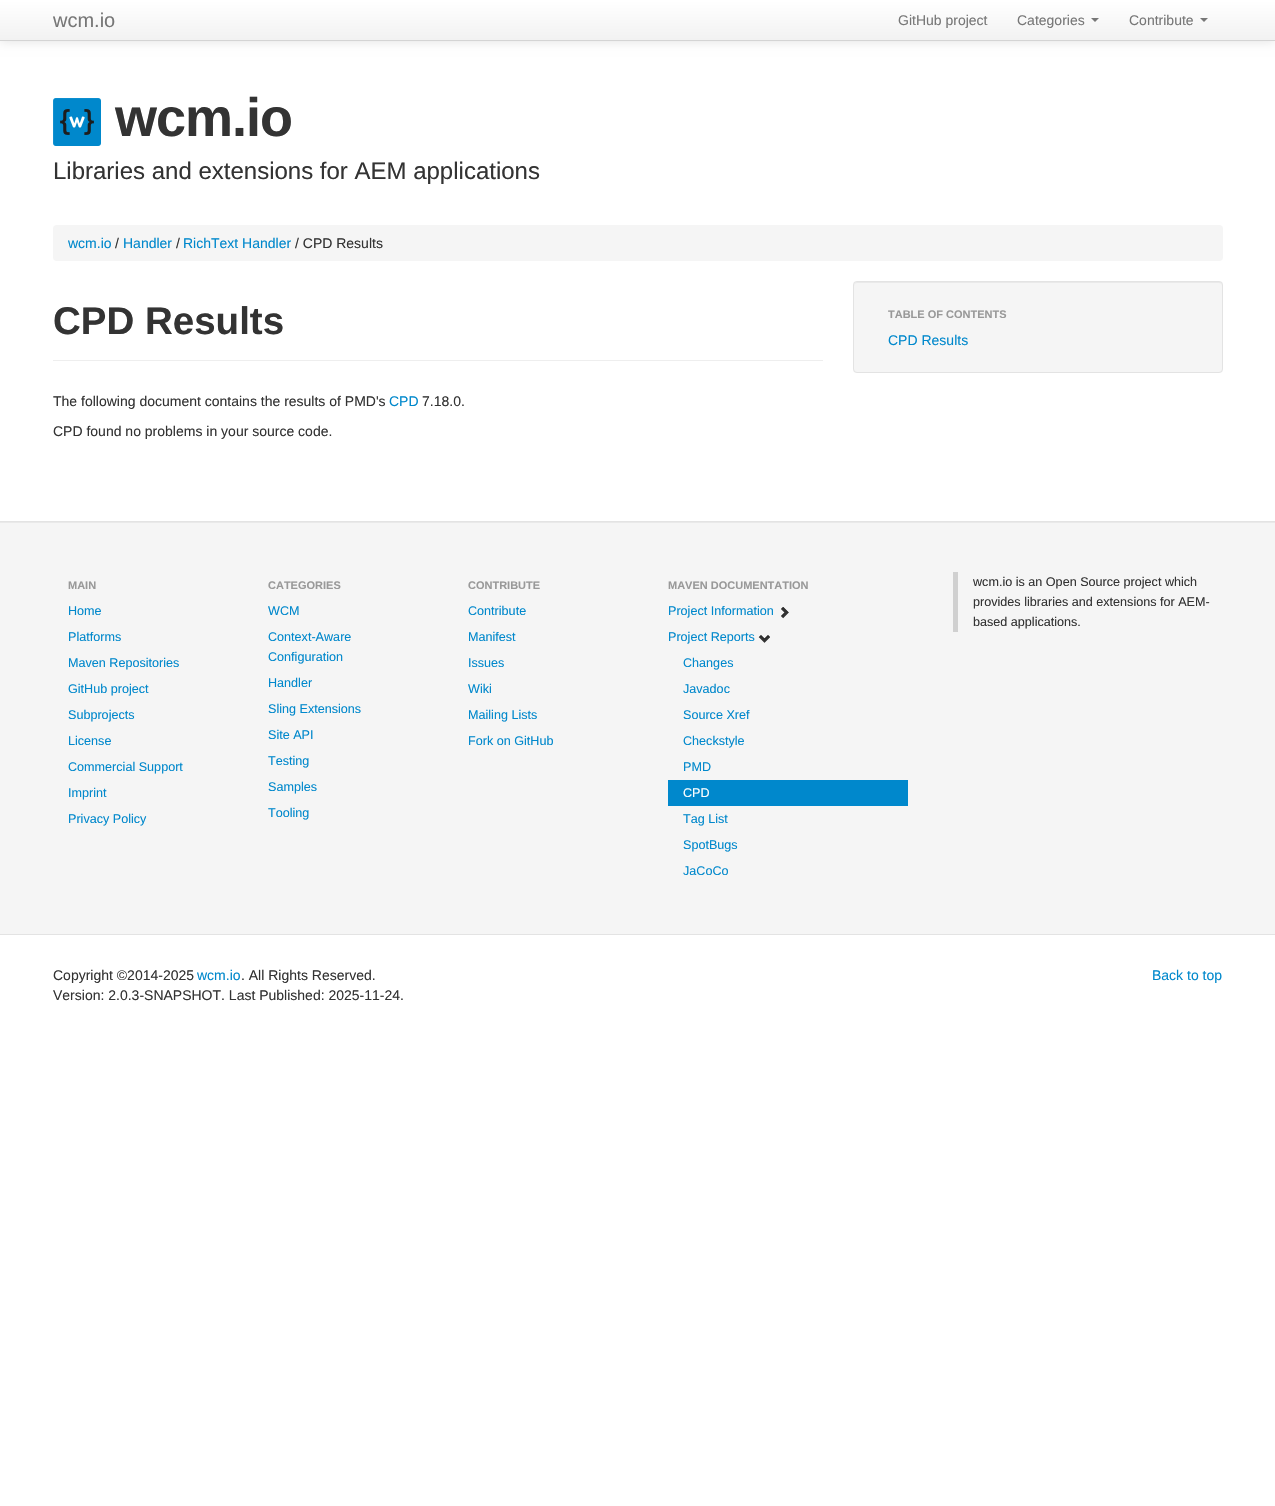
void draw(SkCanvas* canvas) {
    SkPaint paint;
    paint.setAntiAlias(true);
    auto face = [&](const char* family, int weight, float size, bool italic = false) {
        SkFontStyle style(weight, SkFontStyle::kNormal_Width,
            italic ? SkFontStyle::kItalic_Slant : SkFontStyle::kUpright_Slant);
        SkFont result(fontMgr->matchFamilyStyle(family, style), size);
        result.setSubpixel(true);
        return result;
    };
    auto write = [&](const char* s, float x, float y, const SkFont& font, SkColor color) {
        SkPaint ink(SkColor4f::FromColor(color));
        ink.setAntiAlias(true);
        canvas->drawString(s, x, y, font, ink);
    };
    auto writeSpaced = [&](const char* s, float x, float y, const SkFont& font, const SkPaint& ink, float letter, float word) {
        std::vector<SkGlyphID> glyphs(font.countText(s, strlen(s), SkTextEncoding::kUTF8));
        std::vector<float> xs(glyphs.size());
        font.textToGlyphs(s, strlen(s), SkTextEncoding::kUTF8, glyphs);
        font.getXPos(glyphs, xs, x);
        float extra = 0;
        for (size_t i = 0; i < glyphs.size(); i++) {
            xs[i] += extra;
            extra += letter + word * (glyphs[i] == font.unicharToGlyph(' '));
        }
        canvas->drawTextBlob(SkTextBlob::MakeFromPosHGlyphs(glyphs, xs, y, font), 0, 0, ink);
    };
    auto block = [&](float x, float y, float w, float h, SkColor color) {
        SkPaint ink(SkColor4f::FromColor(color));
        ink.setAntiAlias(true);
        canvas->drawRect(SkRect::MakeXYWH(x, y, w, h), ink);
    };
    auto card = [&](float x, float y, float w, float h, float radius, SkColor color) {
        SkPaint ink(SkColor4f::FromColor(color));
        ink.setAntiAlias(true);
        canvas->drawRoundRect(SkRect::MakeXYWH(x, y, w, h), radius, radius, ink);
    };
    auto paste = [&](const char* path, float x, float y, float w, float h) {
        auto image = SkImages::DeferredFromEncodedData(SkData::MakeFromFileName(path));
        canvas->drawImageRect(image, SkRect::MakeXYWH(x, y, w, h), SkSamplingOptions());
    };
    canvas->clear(SK_ColorWHITE);
    paint.setColor(SkColorSetARGB(26, 0, 0, 0));
    paint.setMaskFilter(SkMaskFilter::MakeBlur(kNormal_SkBlurStyle, 5));
    canvas->drawRect(SkRect::MakeXYWH(0, 1, 1275, 41), paint);
    paint.setMaskFilter(nullptr);
    {
        const SkColor colors[] = {SK_ColorWHITE, SkColorSetRGB(242, 242, 242)};
        const float stops[] = {0, 1};
        const SkPoint ends[] = {{638, 0}, {638, 40}};
        paint.setShader(SkGradientShader::MakeLinear(ends, colors, stops, 2, SkTileMode::kClamp));
        paint.setAlpha(255);
    }
    canvas->drawRect(SkRect::MakeXYWH(0, 0, 1275, 40), paint);
    block(0, 40, 1275, 1, SkColorSetRGB(212, 212, 212));
    auto kFont1 = face("Liberation Sans", 400, 20);
    write("wcm.io", 53, 27, kFont1, SkColorSetRGB(119, 119, 119));
    auto kFont2 = face("Liberation Sans", 400, 14);
    write("GitHub project", 898, 25, kFont2, SkColorSetRGB(119, 119, 119));
    write("Categories", 1017, 25, kFont2, SkColorSetRGB(119, 119, 119));
    paint.setShader(nullptr);
    paint.setColor(SkColorSetRGB(119, 119, 119));
    canvas->drawPath(SkPathBuilder().moveTo(1091, 18).lineTo(1099, 18).lineTo(1095, 22).close().detach(), paint);
    write("Contribute", 1129, 25, kFont2, SkColorSetRGB(119, 119, 119));
    canvas->drawPath(SkPathBuilder().moveTo(1200, 18).lineTo(1208, 18).lineTo(1204, 22).close().detach(), paint);
    paste("pic1.png", 53, 98, 48, 48);
    auto kFont3 = face("Liberation Sans", 700, 54);
    paint.setColor(SkColorSetRGB(51, 51, 51));
    writeSpaced("wcm.io", 115, 136, kFont3, paint, -1, 0);
    auto kFont4 = face("Liberation Sans", 400, 24);
    write("Libraries and extensions for AEM applications", 53, 179, kFont4, SkColorSetRGB(51, 51, 51));
    card(53, 225, 1170, 36, 4, SkColorSetRGB(245, 245, 245));
    write("wcm.io", 68, 248, kFont2, SkColorSetRGB(0, 136, 204));
    write("/", 115, 248, kFont2, SkColorSetRGB(51, 51, 51));
    write("Handler", 123, 248, kFont2, SkColorSetRGB(0, 136, 204));
    write("/", 176, 248, kFont2, SkColorSetRGB(51, 51, 51));
    write("RichText Handler", 183, 248, kFont2, SkColorSetRGB(0, 136, 204));
    write("/ CPD Results", 295, 248, kFont2, SkColorSetRGB(51, 51, 51));
    block(53, 360, 770, 1, SkColorSetRGB(238, 238, 238));
    auto kFont5 = face("Liberation Sans", 700, 38.5f);
    write("CPD Results", 53, 334, kFont5, SkColorSetRGB(51, 51, 51));
    write("The following document contains the results of PMD's", 53, 406, kFont2, SkColorSetRGB(51, 51, 51));
    write("CPD", 389, 406, kFont2, SkColorSetRGB(0, 136, 204));
    write("7.18.0.", 422, 406, kFont2, SkColorSetRGB(51, 51, 51));
    write("CPD found no problems in your source code.", 53, 436, kFont2, SkColorSetRGB(51, 51, 51));
    card(853, 281, 370, 92, 4, SkColorSetRGB(245, 245, 245));
    paint.setColor(SkColorSetRGB(233, 233, 233));
    canvas->drawPath(SkPathBuilder().moveTo(857, 283).lineTo(1219, 283).cubicTo(1221, 283, 1222, 284, 1222, 286).cubicTo(1222, 284, 1221, 282, 1219, 282).lineTo(857, 282).lineTo(855, 283).lineTo(854, 286).cubicTo(854, 284, 855, 283, 857, 283).close().detach(), paint);
    paint.setStyle(SkPaint::kStroke_Style);
    paint.setStrokeWidth(1);
    paint.setColor(SkColorSetRGB(227, 227, 227));
    canvas->drawRoundRect(SkRect::MakeXYWH(853.5f, 281.5f, 369, 91), 3.5f, 3.5f, paint);
    auto kFont6 = face("Liberation Sans", 700, 11);
    write("TABLE OF CONTENTS", 888, 318, kFont6, SkColorSetRGB(153, 153, 153));
    write("CPD Results", 888, 345, kFont2, SkColorSetRGB(0, 136, 204));
    block(0, 523, 1275, 411, SkColorSetRGB(245, 245, 245));
    block(0, 522, 1275, 1, SkColorSetRGB(233, 233, 233));
    block(0, 521, 1275, 1, SkColorSetRGB(227, 227, 227));
    block(0, 934, 1275, 1, SkColorSetRGB(227, 227, 227));
    write("MAIN", 68, 589, kFont6, SkColorSetRGB(153, 153, 153));
    auto kFont7 = face("Liberation Sans", 400, 12.6f);
    write("Home", 68, 615, kFont7, SkColorSetRGB(0, 136, 204));
    write("Platforms", 68, 641, kFont7, SkColorSetRGB(0, 136, 204));
    write("Maven Repositories", 68, 667, kFont7, SkColorSetRGB(0, 136, 204));
    write("GitHub project", 68, 693, kFont7, SkColorSetRGB(0, 136, 204));
    write("Subprojects", 68, 719, kFont7, SkColorSetRGB(0, 136, 204));
    write("License", 68, 745, kFont7, SkColorSetRGB(0, 136, 204));
    write("Commercial Support", 68, 771, kFont7, SkColorSetRGB(0, 136, 204));
    write("Imprint", 68, 797, kFont7, SkColorSetRGB(0, 136, 204));
    write("Privacy Policy", 68, 823, kFont7, SkColorSetRGB(0, 136, 204));
    write("CATEGORIES", 268, 589, kFont6, SkColorSetRGB(153, 153, 153));
    write("WCM", 268, 615, kFont7, SkColorSetRGB(0, 136, 204));
    write("Context-Aware", 268, 641, kFont7, SkColorSetRGB(0, 136, 204));
    write("Configuration", 268, 661, kFont7, SkColorSetRGB(0, 136, 204));
    write("Handler", 268, 687, kFont7, SkColorSetRGB(0, 136, 204));
    write("Sling Extensions", 268, 713, kFont7, SkColorSetRGB(0, 136, 204));
    write("Site API", 268, 739, kFont7, SkColorSetRGB(0, 136, 204));
    write("Testing", 268, 765, kFont7, SkColorSetRGB(0, 136, 204));
    write("Samples", 268, 791, kFont7, SkColorSetRGB(0, 136, 204));
    write("Tooling", 268, 817, kFont7, SkColorSetRGB(0, 136, 204));
    write("CONTRIBUTE", 468, 589, kFont6, SkColorSetRGB(153, 153, 153));
    write("Contribute", 468, 615, kFont7, SkColorSetRGB(0, 136, 204));
    write("Manifest", 468, 641, kFont7, SkColorSetRGB(0, 136, 204));
    write("Issues", 468, 667, kFont7, SkColorSetRGB(0, 136, 204));
    write("Wiki", 468, 693, kFont7, SkColorSetRGB(0, 136, 204));
    write("Mailing Lists", 468, 719, kFont7, SkColorSetRGB(0, 136, 204));
    write("Fork on GitHub", 468, 745, kFont7, SkColorSetRGB(0, 136, 204));
    write("MAVEN DOCUMENTATION", 668, 589, kFont6, SkColorSetRGB(153, 153, 153));
    write("Project Information", 668, 615, kFont7, SkColorSetRGB(0, 136, 204));
    paste("pic2.png", 781, 607, 8, 12);
    write("Project Reports", 668, 641, kFont7, SkColorSetRGB(0, 136, 204));
    paste("pic3.png", 758, 635, 12, 8);
    write("Changes", 683, 667, kFont7, SkColorSetRGB(0, 136, 204));
    write("Javadoc", 683, 693, kFont7, SkColorSetRGB(0, 136, 204));
    write("Source Xref", 683, 719, kFont7, SkColorSetRGB(0, 136, 204));
    write("Checkstyle", 683, 745, kFont7, SkColorSetRGB(0, 136, 204));
    write("PMD", 683, 771, kFont7, SkColorSetRGB(0, 136, 204));
    block(668, 780, 240, 26, SkColorSetRGB(0, 136, 204));
    write("CPD", 683, 797, kFont7, SK_ColorWHITE);
    write("Tag List", 683, 823, kFont7, SkColorSetRGB(0, 136, 204));
    write("SpotBugs", 683, 849, kFont7, SkColorSetRGB(0, 136, 204));
    write("JaCoCo", 683, 875, kFont7, SkColorSetRGB(0, 136, 204));
    block(953, 572, 5, 60, SkColorSetRGB(208, 208, 208));
    write("wcm.io is an Open Source project which", 973, 586, kFont7, SkColorSetRGB(51, 51, 51));
    write("provides libraries and extensions for AEM-", 973, 606, kFont7, SkColorSetRGB(51, 51, 51));
    write("based applications.", 973, 626, kFont7, SkColorSetRGB(51, 51, 51));
    write("Copyright ©2014-2025", 53, 980, kFont2, SkColorSetRGB(51, 51, 51));
    write("wcm.io", 197, 980, kFont2, SkColorSetRGB(0, 136, 204));
    write(". All Rights Reserved.", 241, 980, kFont2, SkColorSetRGB(51, 51, 51));
    write("Back to top", 1152, 980, kFont2, SkColorSetRGB(0, 136, 204));
    write("Version: 2.0.3-SNAPSHOT. Last Published: 2025-11-24.", 53, 1000, kFont2, SkColorSetRGB(51, 51, 51));
}
